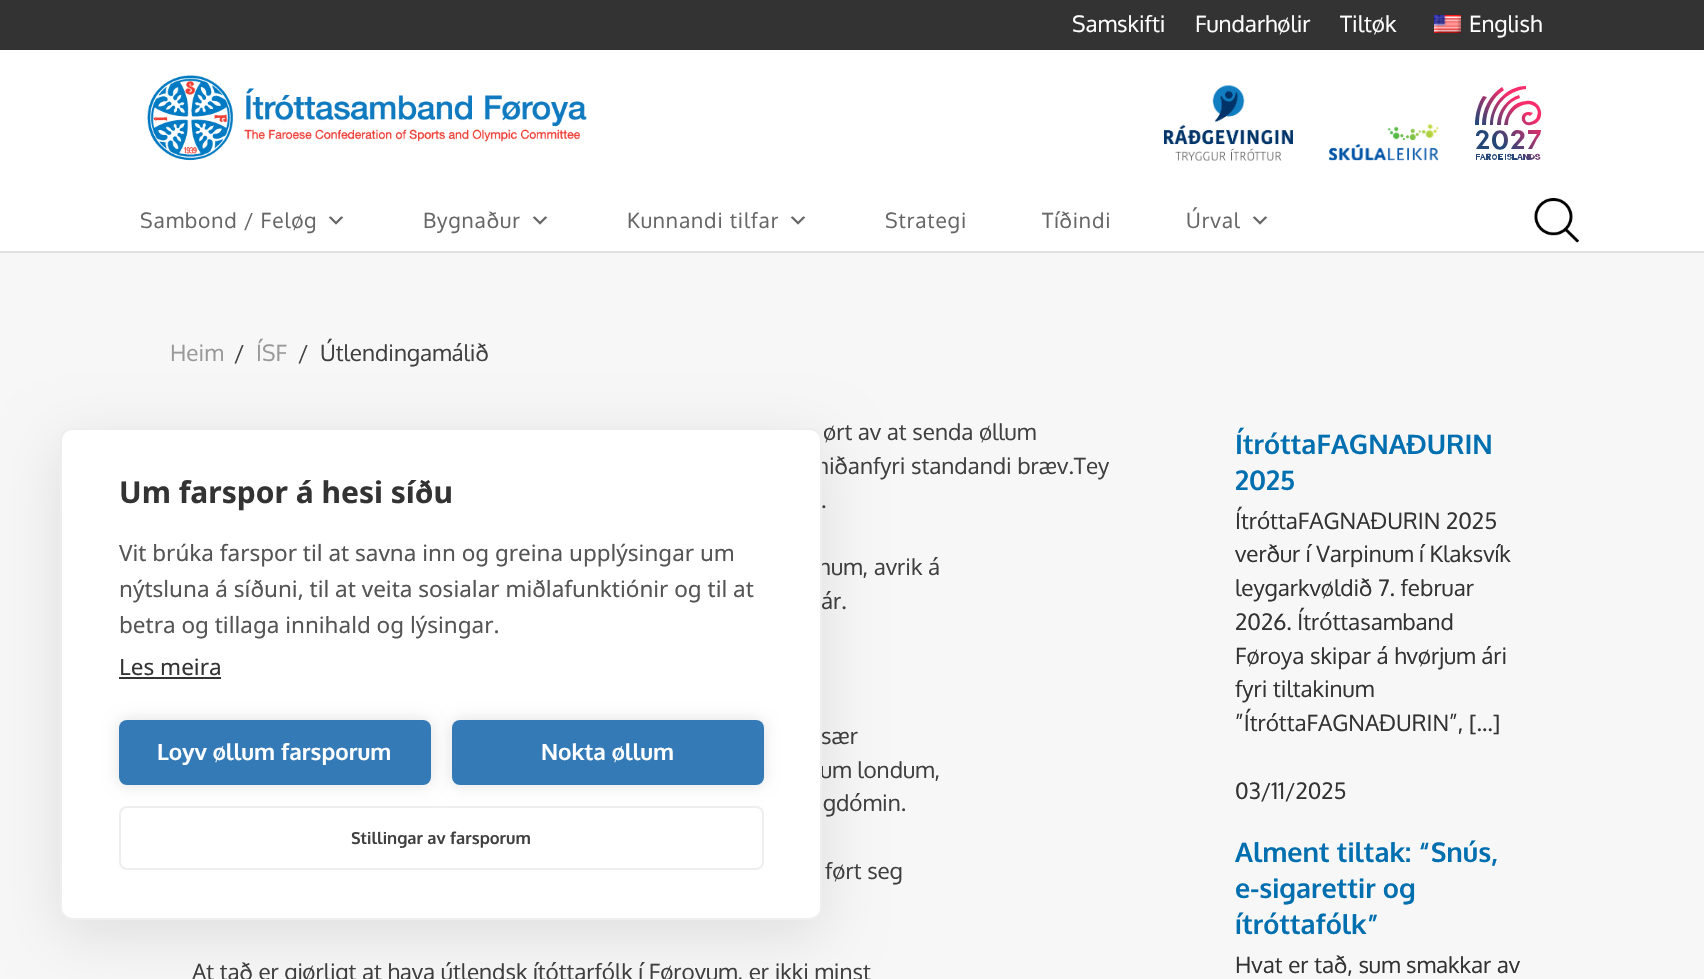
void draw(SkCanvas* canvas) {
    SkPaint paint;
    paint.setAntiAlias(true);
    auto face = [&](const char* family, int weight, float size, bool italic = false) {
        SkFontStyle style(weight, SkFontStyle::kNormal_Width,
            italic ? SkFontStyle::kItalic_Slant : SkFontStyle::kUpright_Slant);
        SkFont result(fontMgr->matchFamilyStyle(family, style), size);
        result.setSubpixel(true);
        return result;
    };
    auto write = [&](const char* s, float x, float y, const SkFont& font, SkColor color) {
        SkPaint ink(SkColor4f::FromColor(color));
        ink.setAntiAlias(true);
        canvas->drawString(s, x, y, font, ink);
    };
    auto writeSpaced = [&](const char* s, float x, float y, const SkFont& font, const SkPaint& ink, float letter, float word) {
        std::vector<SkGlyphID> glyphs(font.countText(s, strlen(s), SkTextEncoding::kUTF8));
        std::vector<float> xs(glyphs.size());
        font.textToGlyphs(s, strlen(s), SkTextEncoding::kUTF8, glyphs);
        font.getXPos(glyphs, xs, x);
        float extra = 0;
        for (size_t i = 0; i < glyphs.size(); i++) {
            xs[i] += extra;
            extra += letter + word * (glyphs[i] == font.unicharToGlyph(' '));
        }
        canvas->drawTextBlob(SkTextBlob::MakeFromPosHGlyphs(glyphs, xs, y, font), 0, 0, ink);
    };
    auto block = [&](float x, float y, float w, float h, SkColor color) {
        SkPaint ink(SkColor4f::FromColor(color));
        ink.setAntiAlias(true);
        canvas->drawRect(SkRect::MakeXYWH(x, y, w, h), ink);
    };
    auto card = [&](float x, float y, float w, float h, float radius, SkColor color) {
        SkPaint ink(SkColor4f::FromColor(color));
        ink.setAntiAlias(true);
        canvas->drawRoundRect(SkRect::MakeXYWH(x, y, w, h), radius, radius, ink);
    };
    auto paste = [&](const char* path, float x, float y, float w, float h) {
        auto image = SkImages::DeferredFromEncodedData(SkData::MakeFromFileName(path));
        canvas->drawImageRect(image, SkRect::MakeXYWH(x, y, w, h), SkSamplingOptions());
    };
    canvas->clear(SkColorSetRGB(247, 247, 247));
    block(0, 0, 1704, 50, SkColorSetRGB(51, 51, 51));
    auto kFont1 = face("Oxygen", 400, 22.5f);
    write("Samskifti", 1072, 32, kFont1, SK_ColorWHITE);
    write("Fundarhølir", 1195, 32, kFont1, SK_ColorWHITE);
    write("Tiltøk", 1340, 32, kFont1, SK_ColorWHITE);
    paste("pic1.png", 1434, 15, 27, 18);
    write("English", 1469, 32, kFont1, SK_ColorWHITE);
    block(0, 50, 1704, 201, SK_ColorWHITE);
    paste("pic2.png", 147, 75, 440, 86);
    paste("pic3.png", 1164, 85, 129, 76);
    paste("pic4.png", 1329, 124, 110, 37);
    {
        const SkColor colors[] = {SkColorSetRGB(37, 70, 118), SkColorSetRGB(248, 45, 107)};
        const float stops[] = {0, 1};
        const SkPoint ends[] = {{1503, 146}, {1531, 115}};
        paint.setShader(SkGradientShader::MakeLinear(ends, colors, stops, 2, SkTileMode::kClamp));
        paint.setAlpha(255);
    }
    canvas->drawPath(SkPathBuilder(SkPathFillType::kEvenOdd).moveTo(1490, 125).cubicTo(1490, 105, 1506, 86, 1526, 86).lineTo(1526, 89).cubicTo(1507, 91, 1493, 106, 1493, 125).close().moveTo(1482, 125).cubicTo(1482, 109, 1490, 95, 1502, 87).lineTo(1504, 90).cubicTo(1493, 97, 1486, 110, 1486, 125).close().moveTo(1497, 124).cubicTo(1498, 110, 1507, 99, 1519, 95).lineTo(1520, 98).cubicTo(1508, 102, 1501, 112, 1501, 125).lineTo(1497, 125).close().moveTo(1475, 125).cubicTo(1475, 114, 1478, 104, 1483, 96).lineTo(1487, 97).cubicTo(1481, 105, 1479, 114, 1479, 125).close().moveTo(1526, 101).cubicTo(1542, 98, 1548, 122, 1531, 125).cubicTo(1521, 127, 1518, 113, 1528, 112).cubicTo(1529, 112, 1531, 112, 1533, 113).lineTo(1530, 116).cubicTo(1524, 111, 1522, 127, 1533, 121).cubicTo(1535, 120, 1537, 118, 1537, 116).cubicTo(1539, 112, 1537, 108, 1534, 106).cubicTo(1527, 101, 1516, 107, 1512, 113).cubicTo(1509, 116, 1508, 120, 1508, 125).lineTo(1504, 125).cubicTo(1506, 112, 1513, 102, 1526, 101).close().moveTo(1476, 136).cubicTo(1476, 126, 1492, 130, 1488, 138).lineTo(1482, 146).lineTo(1489, 146).lineTo(1489, 149).lineTo(1476, 149).cubicTo(1478, 145, 1484, 139, 1485, 136).cubicTo(1485, 132, 1479, 132, 1479, 136).close().moveTo(1492, 140).cubicTo(1492, 127, 1508, 127, 1508, 140).cubicTo(1508, 153, 1492, 153, 1492, 140).close().moveTo(1511, 136).cubicTo(1512, 126, 1528, 130, 1524, 138).lineTo(1517, 146).lineTo(1524, 146).lineTo(1524, 149).lineTo(1511, 149).cubicTo(1513, 144, 1518, 141, 1520, 137).cubicTo(1522, 133, 1515, 132, 1515, 136).close().moveTo(1528, 130).lineTo(1541, 130).cubicTo(1541, 134, 1539, 136, 1537, 139).lineTo(1532, 149).lineTo(1528, 149).lineTo(1537, 134).lineTo(1528, 134).close().moveTo(1496, 140).cubicTo(1496, 149, 1504, 149, 1504, 140).cubicTo(1504, 131, 1496, 131, 1496, 140).close().moveTo(1492, 157).cubicTo(1492, 153, 1497, 153, 1497, 157).cubicTo(1497, 161, 1492, 161, 1492, 157).close().moveTo(1507, 156).cubicTo(1507, 153, 1512, 153, 1512, 156).lineTo(1510, 156).cubicTo(1510, 154, 1508, 155, 1509, 156).cubicTo(1509, 157, 1514, 156, 1511, 159).lineTo(1510, 160).cubicTo(1509, 160, 1507, 159, 1507, 158).lineTo(1508, 158).cubicTo(1509, 160, 1512, 158, 1510, 157).cubicTo(1509, 157, 1507, 157, 1507, 156).close().moveTo(1535, 156).cubicTo(1535, 153, 1540, 153, 1540, 156).lineTo(1538, 156).cubicTo(1538, 154, 1536, 155, 1537, 156).cubicTo(1537, 157, 1542, 156, 1540, 159).lineTo(1538, 160).cubicTo(1537, 160, 1535, 159, 1535, 158).lineTo(1537, 158).cubicTo(1537, 160, 1540, 158, 1538, 157).cubicTo(1537, 157, 1535, 157, 1535, 156).close().moveTo(1476, 154).lineTo(1480, 154).lineTo(1480, 155).lineTo(1477, 155).lineTo(1477, 156).lineTo(1480, 156).lineTo(1480, 157).lineTo(1477, 157).lineTo(1477, 160).lineTo(1476, 160).close().moveTo(1482, 154).lineTo(1483, 154).lineTo(1486, 160).lineTo(1484, 160).lineTo(1484, 158).lineTo(1482, 158).lineTo(1481, 160).lineTo(1480, 160).close().moveTo(1486, 154).cubicTo(1488, 154, 1492, 153, 1491, 156).lineTo(1490, 157).lineTo(1491, 160).lineTo(1489, 160).lineTo(1488, 158).lineTo(1488, 160).lineTo(1486, 160).close().moveTo(1498, 154).lineTo(1503, 154).lineTo(1503, 155).lineTo(1500, 155).lineTo(1500, 156).lineTo(1502, 156).lineTo(1502, 157).lineTo(1500, 157).lineTo(1500, 158).lineTo(1503, 158).lineTo(1503, 160).lineTo(1498, 160).close().moveTo(1505, 160).lineTo(1505, 154).lineTo(1506, 154).lineTo(1506, 160).close().moveTo(1512, 154).lineTo(1514, 154).lineTo(1514, 158).lineTo(1517, 158).lineTo(1517, 160).lineTo(1512, 160).close().moveTo(1519, 154).lineTo(1521, 154).lineTo(1523, 160).lineTo(1521, 160).lineTo(1521, 158).lineTo(1519, 158).lineTo(1518, 160).lineTo(1517, 160).close().moveTo(1527, 154).lineTo(1529, 154).lineTo(1529, 160).lineTo(1527, 160).lineTo(1525, 156).lineTo(1525, 160).lineTo(1523, 160).lineTo(1523, 154).lineTo(1525, 154).lineTo(1527, 157).close().moveTo(1529, 154).cubicTo(1537, 154, 1537, 160, 1529, 160).close().moveTo(1493, 157).cubicTo(1493, 159, 1496, 159, 1496, 157).cubicTo(1496, 155, 1493, 155, 1493, 157).close().moveTo(1488, 155).lineTo(1488, 156).cubicTo(1490, 156, 1490, 155, 1489, 155).close().moveTo(1531, 155).lineTo(1531, 158).cubicTo(1534, 158, 1534, 155, 1532, 155).close().moveTo(1483, 155).lineTo(1482, 157).lineTo(1483, 157).close().moveTo(1520, 155).lineTo(1519, 157).lineTo(1521, 157).close().detach(), paint);
    block(0, 251, 1704, 2, SkColorSetRGB(224, 224, 224));
    paste("pic6.png", 1534, 198, 45, 45);
    {
        const SkColor colors[] = {SkColorSetARGB(0, 255, 255, 255), SkColorSetARGB(26, 255, 255, 255)};
        const float stops[] = {0, 1};
        const SkPoint ends[] = {{830, 190}, {830, 251}};
        paint.setShader(SkGradientShader::MakeLinear(ends, colors, stops, 2, SkTileMode::kClamp));
        paint.setAlpha(255);
    }
    canvas->drawRect(SkRect::MakeXYWH(1534, 213, 1, 8), paint);
    auto kFont2 = face("Oxygen", 400, 21);
    paint.setShader(nullptr);
    paint.setColor(SkColorSetRGB(102, 102, 102));
    writeSpaced("Sambond / Feløg", 140, 228, kFont2, paint, 0.9f, 0);
    paste("pic5.png", 328, 216, 16, 9);
    writeSpaced("Bygnaður", 423, 228, kFont2, paint, 0.9f, 0);
    paste("pic5.png", 532, 216, 16, 9);
    writeSpaced("Kunnandi tilfar", 627, 228, kFont2, paint, 0.9f, 0);
    paste("pic5.png", 790, 216, 16, 9);
    writeSpaced("Strategi", 885, 228, kFont2, paint, 0.9f, 0);
    writeSpaced("Tíðindi", 1042, 228, kFont2, paint, 0.9f, 0);
    writeSpaced("Úrval", 1186, 228, kFont2, paint, 0.9f, 0);
    paste("pic5.png", 1252, 216, 16, 9);
    write("Heim", 170, 361, kFont1, SkColorSetRGB(153, 153, 153));
    write("/", 234, 361, kFont1, SkColorSetRGB(64, 64, 64));
    write("ÍSF", 256, 361, kFont1, SkColorSetRGB(153, 153, 153));
    write("/", 298, 361, kFont1, SkColorSetRGB(64, 64, 64));
    write("Útlendingamálið", 320, 361, kFont1, SkColorSetRGB(64, 64, 64));
    write("ørt av at senda øllum", 823, 440, kFont1, SkColorSetRGB(64, 64, 64));
    write("niðanfyri standandi bræv.Tey", 816, 474, kFont1, SkColorSetRGB(64, 64, 64));
    write(".", 821, 508, kFont1, SkColorSetRGB(64, 64, 64));
    write("num, avrik á", 818, 575, kFont1, SkColorSetRGB(64, 64, 64));
    write("ár.", 821, 609, kFont1, SkColorSetRGB(64, 64, 64));
    write("sær", 821, 744, kFont1, SkColorSetRGB(64, 64, 64));
    write("um londum,", 820, 778, kFont1, SkColorSetRGB(64, 64, 64));
    write("gdómin.", 823, 811, kFont1, SkColorSetRGB(64, 64, 64));
    write("ført seg", 825, 879, kFont1, SkColorSetRGB(64, 64, 64));
    write("At tað er gjørligt at hava útlendsk ítóttarfólk í Føroyum, er ikki minst", 192, 980, kFont1, SkColorSetRGB(64, 64, 64));
    auto kFont3 = face("Oxygen", 700, 27);
    write("ÍtróttaFAGNAÐURIN", 1235, 454, kFont3, SkColorSetRGB(0, 111, 176));
    write("2025", 1235, 490, kFont3, SkColorSetRGB(0, 111, 176));
    write("ÍtróttaFAGNAÐURIN 2025", 1235, 529, kFont1, SkColorSetRGB(51, 51, 51));
    write("verður í Varpinum í Klaksvík", 1235, 562, kFont1, SkColorSetRGB(51, 51, 51));
    write("leygarkvøldið 7. februar", 1235, 596, kFont1, SkColorSetRGB(51, 51, 51));
    write("2026. Ítróttasamband", 1235, 630, kFont1, SkColorSetRGB(51, 51, 51));
    write("Føroya skipar á hvørjum ári", 1235, 664, kFont1, SkColorSetRGB(51, 51, 51));
    write("fyri tiltakinum", 1235, 697, kFont1, SkColorSetRGB(51, 51, 51));
    write("”ÍtróttaFAGNAÐURIN”, […]", 1235, 731, kFont1, SkColorSetRGB(51, 51, 51));
    write("03/11/2025", 1235, 799, kFont1, SkColorSetRGB(51, 51, 51));
    write("Alment tiltak: “Snús,", 1235, 862, kFont3, SkColorSetRGB(0, 111, 176));
    write("e-sigarettir og", 1235, 898, kFont3, SkColorSetRGB(0, 111, 176));
    write("ítróttafólk”", 1235, 934, kFont3, SkColorSetRGB(0, 111, 176));
    write("Hvat er tað, sum smakkar av", 1235, 973, kFont1, SkColorSetRGB(51, 51, 51));
    paint.setColor(SkColorSetARGB(26, 0, 0, 0));
    paint.setMaskFilter(SkMaskFilter::MakeBlur(kNormal_SkBlurStyle, 30));
    canvas->drawRoundRect(SkRect::MakeXYWH(60, 443, 762, 492), 12, 12, paint);
    paint.setMaskFilter(nullptr);
    paint.setColor(SK_ColorWHITE);
    canvas->drawRoundRect(SkRect::MakeXYWH(61, 429, 760, 490), 11, 11, paint);
    paint.setStyle(SkPaint::kStroke_Style);
    paint.setStrokeWidth(2);
    paint.setColor(SkColorSetRGB(238, 238, 238));
    canvas->drawRoundRect(SkRect::MakeXYWH(61, 429, 760, 490), 11, 11, paint);
    auto kFont4 = face("Noto Sans", 700, 30);
    write("Um farspor á hesi síðu", 119, 503, kFont4, SkColorSetRGB(51, 51, 51));
    auto kFont5 = face("Noto Sans", 400, 22.5f);
    write("Vit brúka farspor til at savna inn og greina upplýsingar um", 119, 561, kFont5, SkColorSetRGB(85, 85, 85));
    write("nýtsluna á síðuni, til at veita sosialar miðlafunktiónir og til at", 119, 597, kFont5, SkColorSetRGB(85, 85, 85));
    write("betra og tillaga innihald og lýsingar.", 119, 633, kFont5, SkColorSetRGB(85, 85, 85));
    write("Les meira", 119, 675, kFont5, SkColorSetRGB(51, 51, 51));
    block(119, 677, 102, 2, SkColorSetRGB(51, 51, 51));
    paint.setStyle(SkPaint::kFill_Style);
    paint.setColor(SkColorSetARGB(31, 0, 0, 0));
    paint.setMaskFilter(SkMaskFilter::MakeBlur(kNormal_SkBlurStyle, 7.5f));
    canvas->drawRoundRect(SkRect::MakeXYWH(119, 720, 312, 65), 8, 8, paint);
    paint.setMaskFilter(nullptr);
    card(119, 720, 312, 65, 8, SkColorSetRGB(51, 122, 183));
    auto kFont6 = face("Oxygen", 700, 22.5f);
    write("Loyv øllum farsporum", 157, 760, kFont6, SK_ColorWHITE);
    paint.setMaskFilter(SkMaskFilter::MakeBlur(kNormal_SkBlurStyle, 7.5f));
    canvas->drawRoundRect(SkRect::MakeXYWH(452, 720, 312, 65), 8, 8, paint);
    paint.setMaskFilter(nullptr);
    card(452, 720, 312, 65, 8, SkColorSetRGB(51, 122, 183));
    write("Nokta øllum", 541, 760, kFont6, SK_ColorWHITE);
    paint.setStyle(SkPaint::kStroke_Style);
    paint.setColor(SkColorSetRGB(238, 238, 238));
    canvas->drawRoundRect(SkRect::MakeXYWH(120, 807, 643, 62), 7, 7, paint);
    auto kFont7 = face("Oxygen", 700, 16.5f);
    write("Stillingar av farsporum", 351, 844, kFont7, SkColorSetRGB(64, 64, 64));
}
